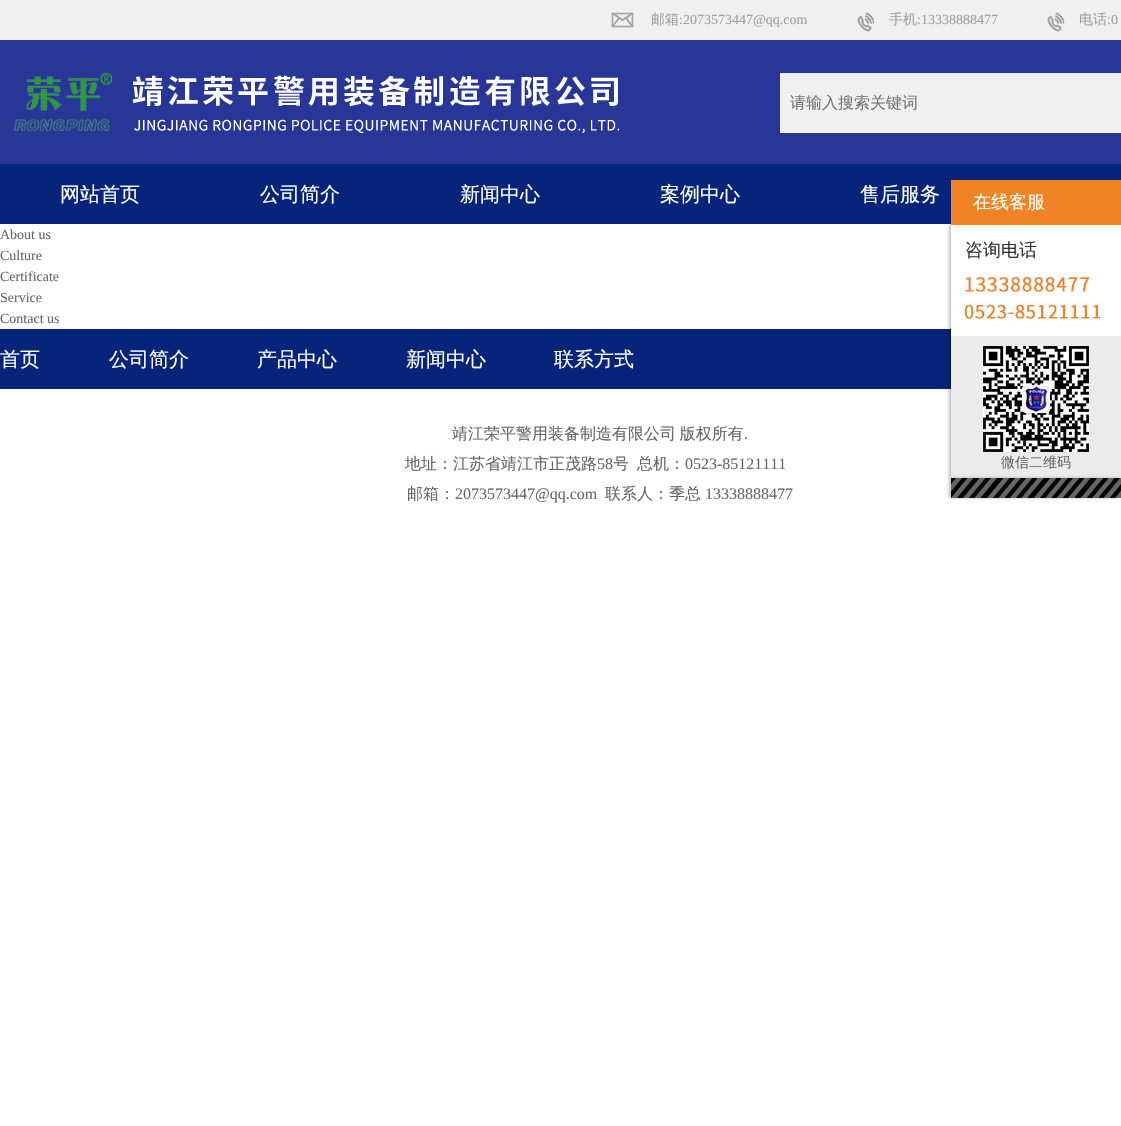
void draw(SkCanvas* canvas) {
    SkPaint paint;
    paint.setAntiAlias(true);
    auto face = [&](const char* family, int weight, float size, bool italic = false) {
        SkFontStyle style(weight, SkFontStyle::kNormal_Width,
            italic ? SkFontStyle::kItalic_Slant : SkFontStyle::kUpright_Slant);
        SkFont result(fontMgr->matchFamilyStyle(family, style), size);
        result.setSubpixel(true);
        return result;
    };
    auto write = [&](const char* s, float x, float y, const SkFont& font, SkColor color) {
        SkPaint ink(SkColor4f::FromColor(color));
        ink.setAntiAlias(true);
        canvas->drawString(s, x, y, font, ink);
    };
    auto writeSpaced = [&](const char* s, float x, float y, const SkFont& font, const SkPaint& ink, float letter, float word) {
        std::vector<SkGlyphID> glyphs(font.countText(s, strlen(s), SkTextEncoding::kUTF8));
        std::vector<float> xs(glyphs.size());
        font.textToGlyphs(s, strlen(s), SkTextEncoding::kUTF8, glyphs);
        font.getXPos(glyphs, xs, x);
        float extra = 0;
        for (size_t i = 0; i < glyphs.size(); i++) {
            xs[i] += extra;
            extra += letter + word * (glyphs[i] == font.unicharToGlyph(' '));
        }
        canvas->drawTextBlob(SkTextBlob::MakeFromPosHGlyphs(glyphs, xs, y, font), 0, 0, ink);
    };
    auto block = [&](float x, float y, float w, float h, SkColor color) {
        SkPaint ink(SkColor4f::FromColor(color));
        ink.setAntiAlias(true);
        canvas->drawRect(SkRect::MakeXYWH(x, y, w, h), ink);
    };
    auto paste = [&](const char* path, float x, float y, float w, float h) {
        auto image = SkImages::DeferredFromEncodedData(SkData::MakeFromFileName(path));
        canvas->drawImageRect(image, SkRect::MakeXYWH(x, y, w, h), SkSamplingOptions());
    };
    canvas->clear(SK_ColorWHITE);
    block(0, 0, 1121, 40, SkColorSetRGB(240, 240, 240));
    paste("pic1.png", 611, 12, 23, 16);
    auto kFont1 = face("WenQuanYi Zen Hei", 500, 14);
    write("邮箱", 651, 24, kFont1, SkColorSetRGB(160, 160, 160));
    auto kFont2 = face("Liberation Serif", 400, 14);
    write(":2073573447@qq.com", 679, 24, kFont2, SkColorSetRGB(160, 160, 160));
    paste("pic2.png", 857, 12, 18, 20);
    write("手机", 889, 24, kFont1, SkColorSetRGB(160, 160, 160));
    write(":13338888477", 917, 24, kFont2, SkColorSetRGB(160, 160, 160));
    paste("pic2.png", 1047, 12, 18, 20);
    write("电话", 1079, 24, kFont1, SkColorSetRGB(160, 160, 160));
    write(":0", 1107, 24, kFont2, SkColorSetRGB(160, 160, 160));
    block(0, 40, 1121, 124, SkColorSetRGB(40, 54, 151));
    paste("pic3.png", 14, 73, 606, 60);
    block(780, 73, 341, 60, SkColorSetRGB(240, 240, 240));
    auto kFont3 = face("WenQuanYi Zen Hei", 500, 16);
    write("请输入搜索关键词", 790, 108, kFont3, SkColorSetRGB(117, 117, 117));
    block(0, 164, 1121, 60, SkColorSetRGB(6, 37, 122));
    auto kFont4 = face("WenQuanYi Zen Hei", 500, 20);
    write("网站首页", 60, 201, kFont4, SK_ColorWHITE);
    write("公司简介", 260, 201, kFont4, SK_ColorWHITE);
    write("新闻中心", 460, 201, kFont4, SK_ColorWHITE);
    write("案例中心", 660, 201, kFont4, SK_ColorWHITE);
    write("售后服务", 860, 201, kFont4, SK_ColorWHITE);
    write("About us", 0, 239, kFont2, SkColorSetRGB(102, 102, 102));
    write("Culture", 0, 260, kFont2, SkColorSetRGB(102, 102, 102));
    write("Certificate", 0, 281, kFont2, SkColorSetRGB(102, 102, 102));
    write("Service", 0, 302, kFont2, SkColorSetRGB(102, 102, 102));
    write("Contact us", 0, 323, kFont2, SkColorSetRGB(102, 102, 102));
    block(0, 329, 951, 60, SkColorSetRGB(6, 37, 122));
    write("首页", 0, 366, kFont4, SK_ColorWHITE);
    write("公司简介", 109, 366, kFont4, SK_ColorWHITE);
    write("产品中心", 257, 366, kFont4, SK_ColorWHITE);
    write("新闻中心", 406, 366, kFont4, SK_ColorWHITE);
    write("联系方式", 554, 366, kFont4, SK_ColorWHITE);
    paint.setColor(SkColorSetRGB(102, 102, 102));
    writeSpaced("靖江荣平警用装备制造有限公司 版权所有", 452, 439, kFont3, paint, 0, -1);
    auto kFont5 = face("Liberation Serif", 400, 16);
    write(".", 744, 439, kFont5, SkColorSetRGB(102, 102, 102));
    write("地址：江苏省靖江市正茂路", 405, 469, kFont3, SkColorSetRGB(102, 102, 102));
    write("58", 597, 469, kFont5, SkColorSetRGB(102, 102, 102));
    write("号", 613, 469, kFont3, SkColorSetRGB(102, 102, 102));
    write("总机：", 637, 469, kFont3, SkColorSetRGB(102, 102, 102));
    write("0523-85121111", 685, 469, kFont5, SkColorSetRGB(102, 102, 102));
    write("邮箱：", 407, 499, kFont3, SkColorSetRGB(102, 102, 102));
    write("2073573447@qq.com", 455, 499, kFont5, SkColorSetRGB(102, 102, 102));
    write("联系人：季总", 605, 499, kFont3, SkColorSetRGB(102, 102, 102));
    write("13338888477", 705, 499, kFont5, SkColorSetRGB(102, 102, 102));
    canvas->save();
    canvas->clipRect(SkRect::MakeXYWH(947, 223, 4, 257));
    paint.setColor(SkColorSetARGB(64, 0, 0, 0));
    paint.setMaskFilter(SkMaskFilter::MakeBlur(kNormal_SkBlurStyle, 1.5f));
    canvas->drawRect(SkRect::MakeXYWH(949, 225, 170, 253), paint);
    paint.setMaskFilter(nullptr);
    canvas->restore();
    block(951, 180, 170, 45, SkColorSetRGB(240, 131, 38));
    auto kFont6 = face("WenQuanYi Zen Hei", 500, 18);
    write("在线客服", 973, 208, kFont6, SK_ColorWHITE);
    write("咨询电话", 965, 256, kFont6, SkColorSetRGB(51, 51, 51));
    paste("pic4.png", 961, 276, 144, 45);
    block(951, 336, 170, 142, SkColorSetRGB(235, 235, 235));
    paste("pic5.png", 983, 346, 106, 106);
    write("微信二维码", 1001, 467, kFont1, SkColorSetRGB(102, 102, 102));
    paint.setMaskFilter(SkMaskFilter::MakeBlur(kNormal_SkBlurStyle, 1.5f));
    canvas->drawRect(SkRect::MakeXYWH(949, 478, 170, 20), paint);
    paint.setMaskFilter(nullptr);
    paste("pic6.png", 951, 478, 170, 20);
}
